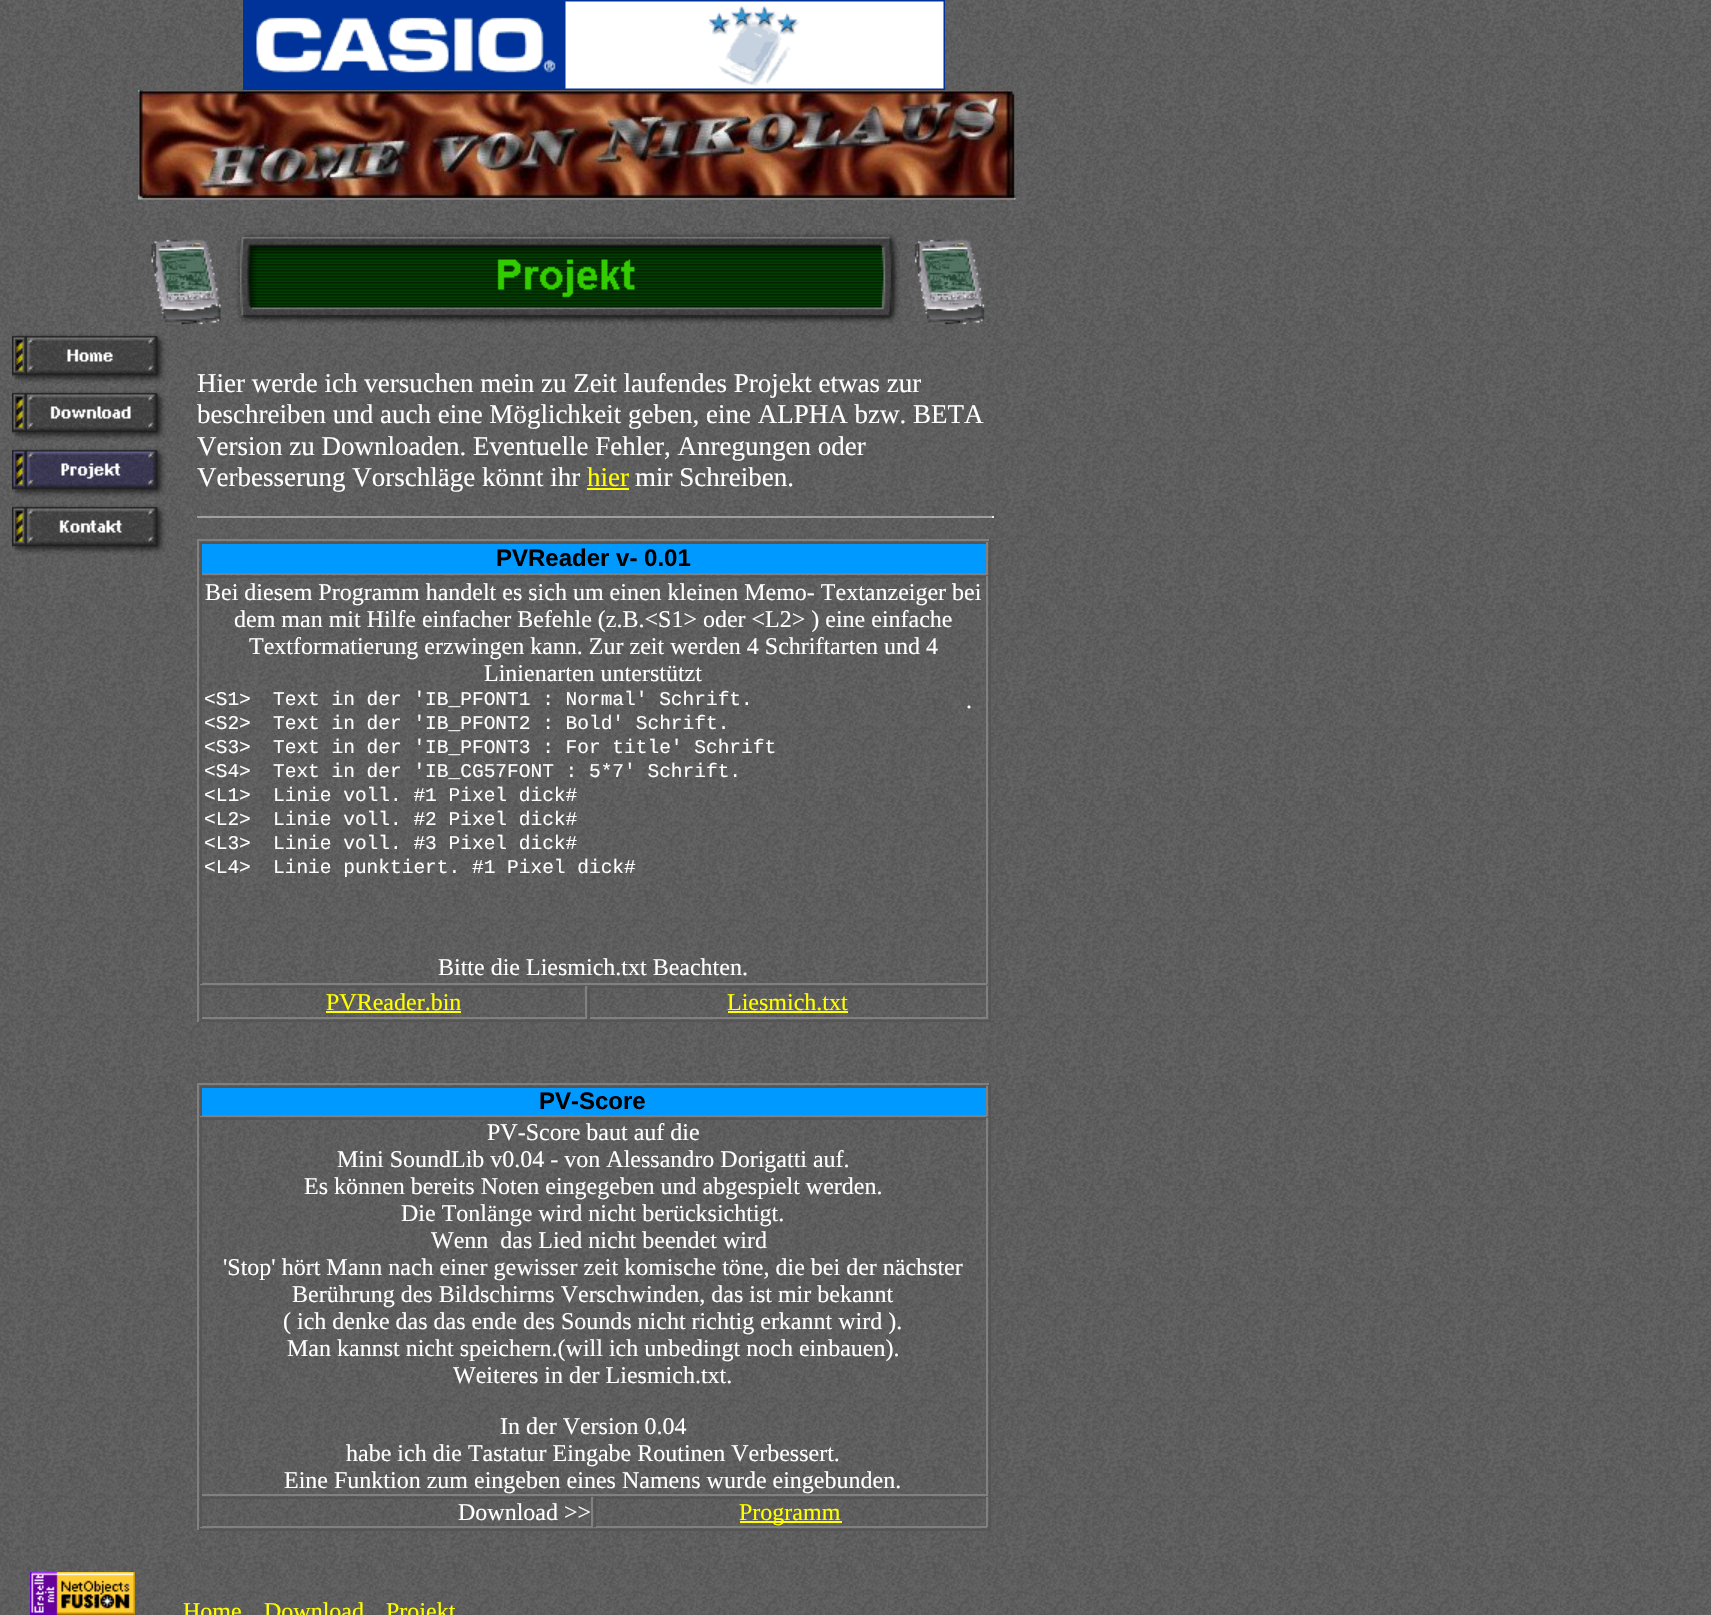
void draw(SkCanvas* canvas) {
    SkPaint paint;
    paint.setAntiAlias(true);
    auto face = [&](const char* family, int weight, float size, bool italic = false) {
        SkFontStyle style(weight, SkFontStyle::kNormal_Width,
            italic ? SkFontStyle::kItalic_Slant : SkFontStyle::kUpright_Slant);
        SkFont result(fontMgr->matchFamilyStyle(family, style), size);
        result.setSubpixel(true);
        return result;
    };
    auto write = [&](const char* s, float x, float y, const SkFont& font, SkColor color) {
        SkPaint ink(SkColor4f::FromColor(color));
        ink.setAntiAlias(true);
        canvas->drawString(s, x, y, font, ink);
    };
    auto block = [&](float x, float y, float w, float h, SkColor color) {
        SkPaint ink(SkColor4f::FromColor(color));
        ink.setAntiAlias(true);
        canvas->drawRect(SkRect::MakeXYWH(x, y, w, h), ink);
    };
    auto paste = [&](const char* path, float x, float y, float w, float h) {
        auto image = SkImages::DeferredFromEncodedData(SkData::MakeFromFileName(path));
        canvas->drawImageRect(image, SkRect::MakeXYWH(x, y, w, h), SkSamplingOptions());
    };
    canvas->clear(SK_ColorWHITE);
    paste("pic1.png", 0, 0, 1711, 1615);
    paste("pic2.png", 243, 0, 702, 90);
    paste("pic3.png", 138, 90, 878, 110);
    paste("pic4.png", 231, 226, 669, 101);
    paste("pic5.png", 151, 239, 70, 86);
    paste("pic6.png", 914, 239, 71, 86);
    paste("pic7.png", 12, 327, 159, 57);
    paste("pic8.png", 12, 384, 159, 57);
    paste("pic9.png", 12, 441, 159, 57);
    paste("pic10.png", 12, 498, 159, 57);
    auto kFont1 = face("Liberation Serif", 400, 27);
    write("Hier werde ich versuchen mein zu Zeit laufendes Projekt etwas zur", 197, 392, kFont1, SK_ColorWHITE);
    write("beschreiben und auch eine Möglichkeit geben, eine ALPHA bzw. BETA", 197, 423, kFont1, SK_ColorWHITE);
    write("Version zu Downloaden. Eventuelle Fehler, Anregungen oder", 197, 455, kFont1, SK_ColorWHITE);
    write("Verbesserung Vorschläge könnt ihr", 197, 486, kFont1, SK_ColorWHITE);
    write("hier", 587, 486, kFont1, SkColorSetRGB(255, 255, 0));
    block(587, 488, 42, 2, SkColorSetRGB(255, 255, 0));
    write("mir Schreiben.", 635, 486, kFont1, SK_ColorWHITE);
    block(197, 516, 796, 2, SkColorSetRGB(159, 159, 159));
    block(992, 516, 2, 2, SkColorSetRGB(238, 238, 238));
    block(197, 539, 793, 2, SkColorSetRGB(128, 128, 128));
    block(989, 539, 2, 483, SkColorSetRGB(85, 85, 85));
    block(197, 1020, 793, 2, SkColorSetRGB(85, 85, 85));
    block(197, 539, 2, 483, SkColorSetRGB(128, 128, 128));
    block(202, 544, 784, 29, SkColorSetRGB(0, 153, 255));
    block(200, 542, 787, 2, SkColorSetRGB(85, 85, 85));
    block(986, 542, 2, 33, SkColorSetRGB(128, 128, 128));
    block(200, 573, 787, 2, SkColorSetRGB(128, 128, 128));
    block(200, 542, 2, 33, SkColorSetRGB(85, 85, 85));
    auto kFont2 = face("Liberation Sans", 700, 24);
    write("PVReader v- 0.01", 496, 566, kFont2, SK_ColorBLACK);
    block(200, 576, 787, 2, SkColorSetRGB(85, 85, 85));
    block(986, 576, 2, 408, SkColorSetRGB(128, 128, 128));
    block(200, 983, 787, 2, SkColorSetRGB(128, 128, 128));
    block(200, 576, 2, 408, SkColorSetRGB(85, 85, 85));
    auto kFont3 = face("Liberation Serif", 400, 24);
    write("Bei diesem Programm handelt es sich um einen kleinen Memo- Textanzeiger bei", 205, 600, kFont3, SK_ColorWHITE);
    write("dem man mit Hilfe einfacher Befehle (z.B.<S1> oder <L2> ) eine einfache", 234, 627, kFont3, SK_ColorWHITE);
    write("Textformatierung erzwingen kann. Zur zeit werden 4 Schriftarten und 4", 249, 654, kFont3, SK_ColorWHITE);
    write("Linienarten unterstützt", 484, 681, kFont3, SK_ColorWHITE);
    auto kFont4 = face("Liberation Mono", 400, 19.5f);
    write("<S1>", 204, 705, kFont4, SK_ColorWHITE);
    write("Text in der 'IB_PFONT1 : Normal' Schrift.", 273, 705, kFont4, SK_ColorWHITE);
    write("<S2>", 204, 729, kFont4, SK_ColorWHITE);
    write("Text in der 'IB_PFONT2 : Bold' Schrift.", 273, 729, kFont4, SK_ColorWHITE);
    write("<S3>", 204, 753, kFont4, SK_ColorWHITE);
    write("Text in der 'IB_PFONT3 : For title' Schrift", 273, 753, kFont4, SK_ColorWHITE);
    write("<S4>", 204, 777, kFont4, SK_ColorWHITE);
    write("Text in der 'IB_CG57FONT : 5*7' Schrift.", 273, 777, kFont4, SK_ColorWHITE);
    write("<L1>", 204, 801, kFont4, SK_ColorWHITE);
    write("Linie voll. #1 Pixel dick#", 273, 801, kFont4, SK_ColorWHITE);
    write("<L2>", 204, 825, kFont4, SK_ColorWHITE);
    write("Linie voll. #2 Pixel dick#", 273, 825, kFont4, SK_ColorWHITE);
    write("<L3>", 204, 849, kFont4, SK_ColorWHITE);
    write("Linie voll. #3 Pixel dick#", 273, 849, kFont4, SK_ColorWHITE);
    write("<L4>", 204, 873, kFont4, SK_ColorWHITE);
    write("Linie punktiert. #1 Pixel dick#", 273, 873, kFont4, SK_ColorWHITE);
    write(".", 966, 708, kFont3, SK_ColorWHITE);
    write("Bitte die Liesmich.txt Beachten.", 438, 975, kFont3, SK_ColorWHITE);
    block(200, 986, 387, 2, SkColorSetRGB(85, 85, 85));
    block(585, 986, 2, 33, SkColorSetRGB(128, 128, 128));
    block(200, 1017, 387, 2, SkColorSetRGB(128, 128, 128));
    block(200, 986, 2, 33, SkColorSetRGB(85, 85, 85));
    write("PVReader.bin", 326, 1010, kFont3, SkColorSetRGB(255, 255, 0));
    block(326, 1011, 135, 2, SkColorSetRGB(255, 255, 0));
    block(588, 986, 399, 2, SkColorSetRGB(85, 85, 85));
    block(986, 986, 2, 33, SkColorSetRGB(128, 128, 128));
    block(588, 1017, 399, 2, SkColorSetRGB(128, 128, 128));
    block(588, 986, 2, 33, SkColorSetRGB(85, 85, 85));
    write("Liesmich.txt", 727, 1010, kFont3, SkColorSetRGB(255, 255, 0));
    block(728, 1011, 120, 2, SkColorSetRGB(255, 255, 0));
    paste("pic11.png", 30, 1572, 105, 43);
    block(197, 1083, 793, 2, SkColorSetRGB(128, 128, 128));
    block(989, 1083, 2, 447, SkColorSetRGB(85, 85, 85));
    block(197, 1529, 793, 2, SkColorSetRGB(85, 85, 85));
    block(197, 1083, 2, 447, SkColorSetRGB(128, 128, 128));
    block(202, 1088, 784, 27, SkColorSetRGB(0, 153, 255));
    block(200, 1086, 787, 2, SkColorSetRGB(85, 85, 85));
    block(986, 1086, 2, 30, SkColorSetRGB(128, 128, 128));
    block(200, 1115, 787, 2, SkColorSetRGB(128, 128, 128));
    block(200, 1086, 2, 30, SkColorSetRGB(85, 85, 85));
    write("PV-Score", 539, 1109, kFont2, SK_ColorBLACK);
    block(200, 1118, 787, 2, SkColorSetRGB(85, 85, 85));
    block(986, 1118, 2, 378, SkColorSetRGB(128, 128, 128));
    block(200, 1494, 787, 2, SkColorSetRGB(128, 128, 128));
    block(200, 1118, 2, 378, SkColorSetRGB(85, 85, 85));
    write("PV-Score baut auf die", 487, 1140, kFont3, SK_ColorWHITE);
    write("Mini SoundLib v0.04 - von Alessandro Dorigatti auf.", 337, 1167, kFont3, SK_ColorWHITE);
    write("Es können bereits Noten eingegeben und abgespielt werden.", 304, 1194, kFont3, SK_ColorWHITE);
    write("Die Tonlänge wird nicht berücksichtigt.", 401, 1221, kFont3, SK_ColorWHITE);
    write("Wenn  das Lied nicht beendet wird", 431, 1248, kFont3, SK_ColorWHITE);
    write("'Stop' hört Mann nach einer gewisser zeit komische töne, die bei der nächster", 223, 1275, kFont3, SK_ColorWHITE);
    write("Berührung des Bildschirms Verschwinden, das ist mir bekannt", 292, 1302, kFont3, SK_ColorWHITE);
    write("( ich denke das das ende des Sounds nicht richtig erkannt wird ).", 283, 1329, kFont3, SK_ColorWHITE);
    write("Man kannst nicht speichern.(will ich unbedingt noch einbauen).", 287, 1356, kFont3, SK_ColorWHITE);
    write("Weiteres in der Liesmich.txt.", 453, 1383, kFont3, SK_ColorWHITE);
    write("In der Version 0.04", 500, 1434, kFont3, SK_ColorWHITE);
    write("habe ich die Tastatur Eingabe Routinen Verbessert.", 346, 1461, kFont3, SK_ColorWHITE);
    write("Eine Funktion zum eingeben eines Namens wurde eingebunden.", 284, 1488, kFont3, SK_ColorWHITE);
    block(200, 1497, 393, 2, SkColorSetRGB(85, 85, 85));
    block(591, 1497, 2, 30, SkColorSetRGB(128, 128, 128));
    block(200, 1526, 393, 2, SkColorSetRGB(128, 128, 128));
    block(200, 1497, 2, 30, SkColorSetRGB(85, 85, 85));
    write("Download >>", 458, 1520, kFont3, SK_ColorWHITE);
    block(594, 1497, 393, 2, SkColorSetRGB(85, 85, 85));
    block(986, 1497, 2, 30, SkColorSetRGB(128, 128, 128));
    block(594, 1526, 393, 2, SkColorSetRGB(128, 128, 128));
    block(594, 1497, 2, 30, SkColorSetRGB(85, 85, 85));
    block(740, 1521, 102, 2, SkColorSetRGB(255, 255, 0));
    write("Programm", 739, 1520, kFont3, SkColorSetRGB(255, 255, 0));
    write("Home", 183, 1619, kFont3, SkColorSetRGB(255, 255, 0));
    write("Download", 264, 1619, kFont3, SkColorSetRGB(255, 255, 0));
    write("Projekt", 386, 1619, kFont3, SkColorSetRGB(255, 255, 0));
}
